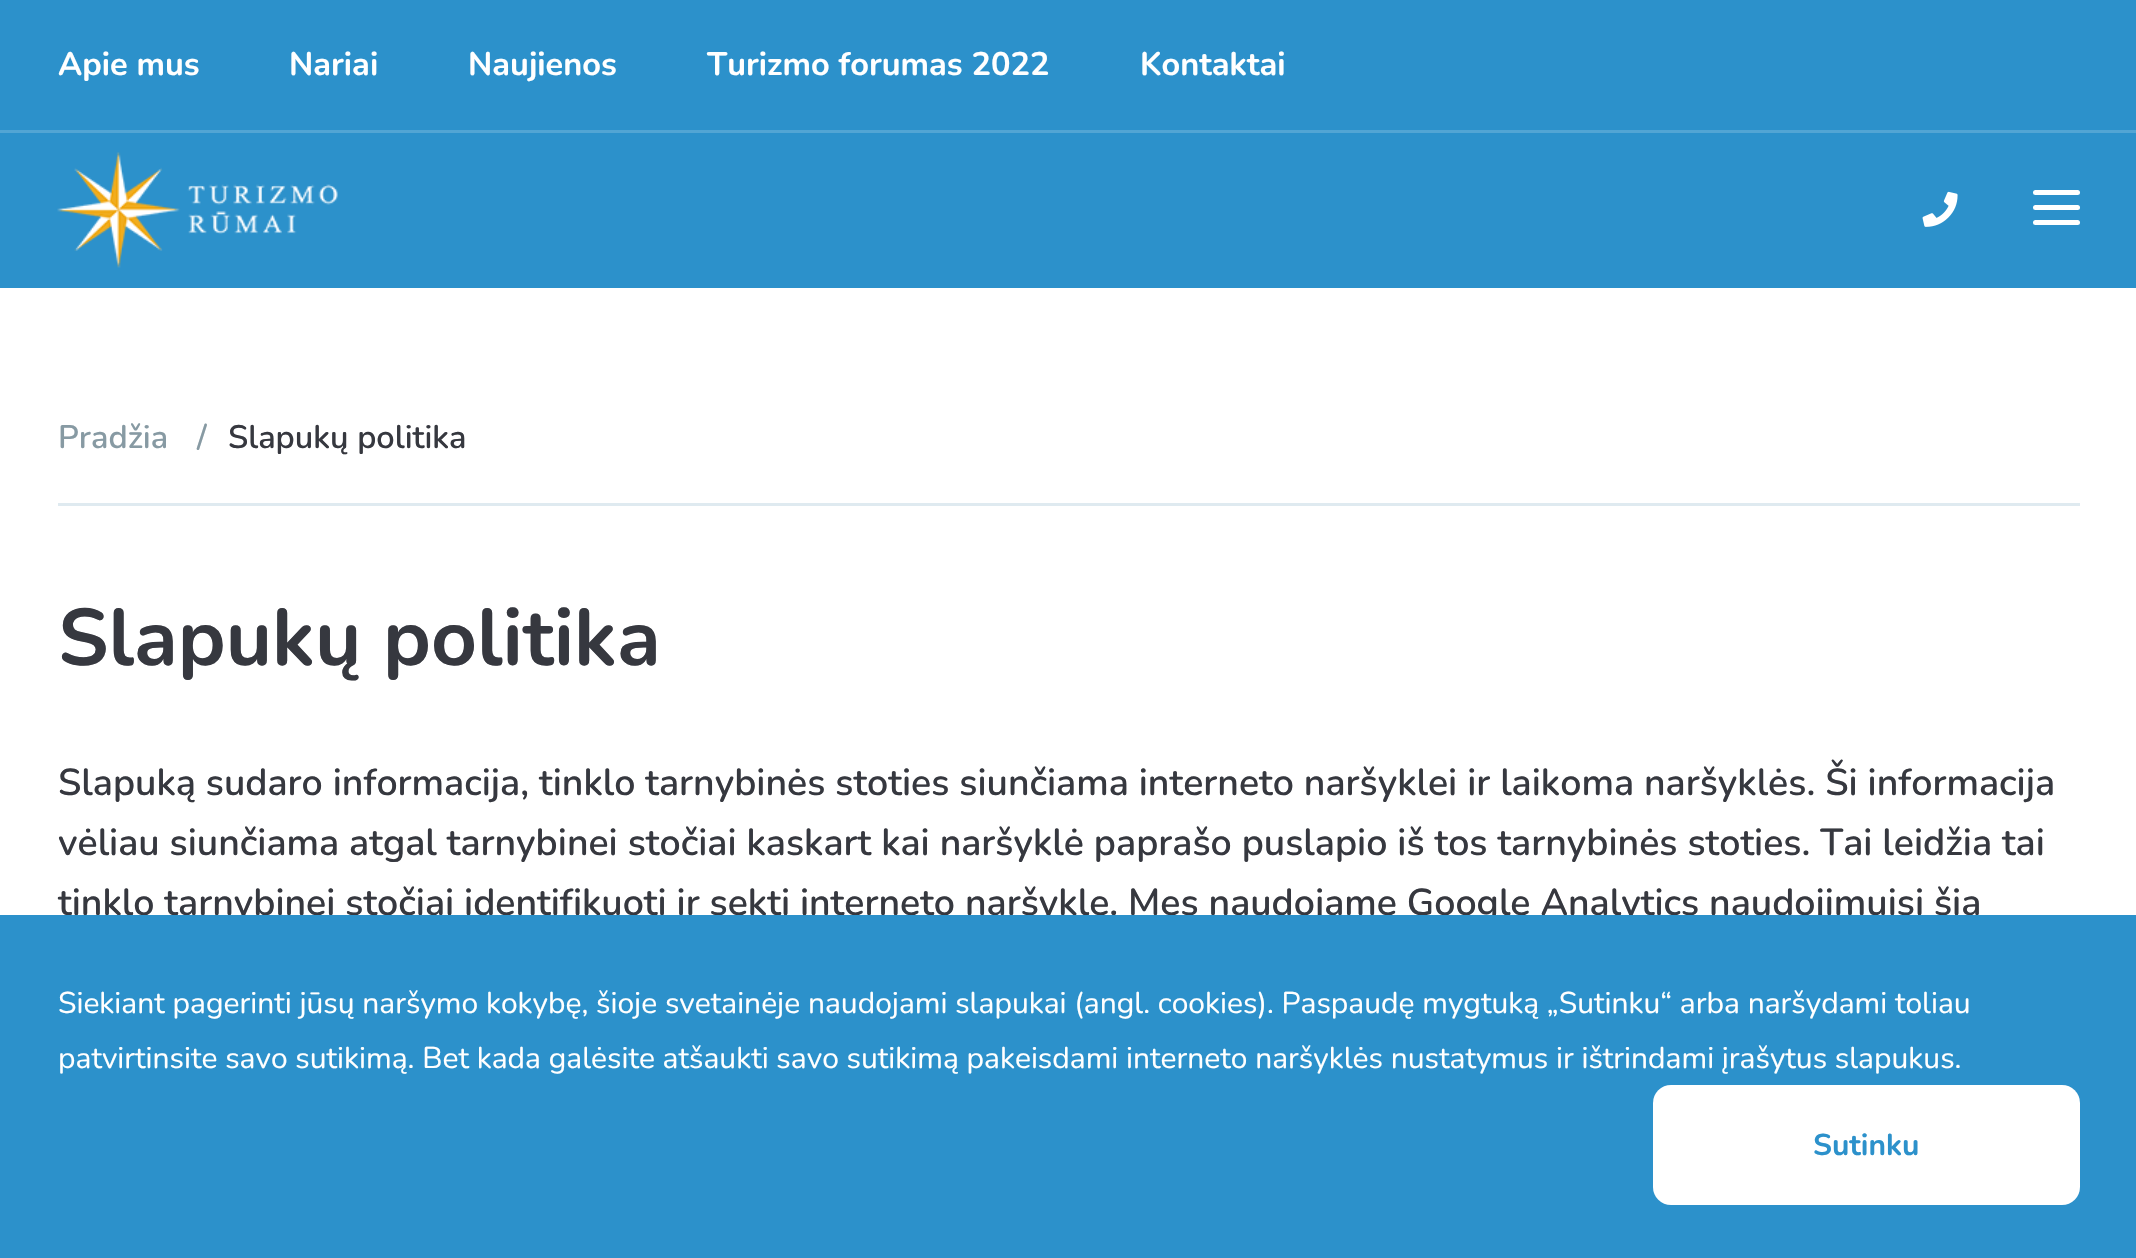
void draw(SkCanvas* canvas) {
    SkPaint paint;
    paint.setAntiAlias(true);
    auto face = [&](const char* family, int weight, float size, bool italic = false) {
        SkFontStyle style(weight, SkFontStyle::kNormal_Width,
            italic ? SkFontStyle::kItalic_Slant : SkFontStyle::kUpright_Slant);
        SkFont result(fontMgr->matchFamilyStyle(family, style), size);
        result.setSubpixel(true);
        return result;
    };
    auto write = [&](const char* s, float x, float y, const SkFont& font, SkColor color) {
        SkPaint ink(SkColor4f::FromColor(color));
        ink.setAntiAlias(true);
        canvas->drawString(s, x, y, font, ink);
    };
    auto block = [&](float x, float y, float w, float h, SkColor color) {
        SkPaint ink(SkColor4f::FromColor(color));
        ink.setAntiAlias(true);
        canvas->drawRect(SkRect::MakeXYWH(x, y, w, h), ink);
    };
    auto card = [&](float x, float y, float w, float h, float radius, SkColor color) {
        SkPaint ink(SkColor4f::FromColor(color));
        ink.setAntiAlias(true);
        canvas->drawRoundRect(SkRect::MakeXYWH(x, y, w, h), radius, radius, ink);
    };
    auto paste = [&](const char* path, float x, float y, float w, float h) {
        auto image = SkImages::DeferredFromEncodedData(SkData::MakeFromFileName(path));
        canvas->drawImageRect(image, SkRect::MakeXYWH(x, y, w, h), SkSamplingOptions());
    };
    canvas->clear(SK_ColorWHITE);
    block(0, 0, 2136, 288, SkColorSetRGB(44, 145, 203));
    block(0, 130, 2136, 3, SkColorSetRGB(82, 165, 212));
    auto kFont1 = face("Nunito", 700, 32.5f);
    write("Apie mus", 58, 75, kFont1, SK_ColorWHITE);
    write("Nariai", 289, 75, kFont1, SK_ColorWHITE);
    write("Naujienos", 468, 75, kFont1, SK_ColorWHITE);
    write("Turizmo forumas 2022", 707, 75, kFont1, SK_ColorWHITE);
    write("Kontaktai", 1140, 75, kFont1, SK_ColorWHITE);
    paste("pic1.png", 57, 152, 281, 116);
    paste("pic2.png", 1922, 191, 36, 36);
    card(2033, 205, 47, 5, 2.5f, SK_ColorWHITE);
    card(2033, 190, 47, 5, 2.5f, SK_ColorWHITE);
    card(2033, 220, 47, 5, 2.5f, SK_ColorWHITE);
    block(58, 503, 2022, 3, SkColorSetRGB(223, 234, 240));
    auto kFont2 = face("Nunito", 600, 32.5f);
    write("Pradžia", 58, 448, kFont2, SkColorSetRGB(135, 154, 163));
    write("/", 197, 448, kFont2, SkColorSetRGB(135, 154, 163));
    write("Slapukų politika", 228, 448, kFont2, SkColorSetRGB(54, 56, 63));
    auto kFont3 = face("Nunito", 700, 80);
    write("Slapukų politika", 58, 665, kFont3, SkColorSetRGB(54, 56, 63));
    auto kFont4 = face("Nunito", 600, 37.5f);
    write("Slapuką sudaro informacija, tinklo tarnybinės stoties siunčiama interneto naršyklei ir laikoma naršyklės. Ši informacija", 58, 795, kFont4, SkColorSetRGB(54, 56, 63));
    write("vėliau siunčiama atgal tarnybinei stočiai kaskart kai naršyklė paprašo puslapio iš tos tarnybinės stoties. Tai leidžia tai", 58, 855, kFont4, SkColorSetRGB(54, 56, 63));
    write("tinklo tarnybinei stočiai identifikuoti ir sekti interneto naršyklę. Mes naudojame Google Analytics naudojimuisi šia", 58, 915, kFont4, SkColorSetRGB(54, 56, 63));
    block(0, 915, 2136, 343, SkColorSetRGB(44, 145, 203));
    auto kFont5 = face("Nunito", 400, 30);
    write("Siekiant pagerinti jūsų naršymo kokybę, šioje svetainėje naudojami slapukai (angl. cookies). Paspaudę mygtuką „Sutinku“ arba naršydami toliau", 58, 1013, kFont5, SK_ColorWHITE);
    write("patvirtinsite savo sutikimą. Bet kada galėsite atšaukti savo sutikimą pakeisdami interneto naršyklės nustatymus ir ištrindami įrašytus slapukus.", 58, 1068, kFont5, SK_ColorWHITE);
    card(1653, 1085, 427, 120, 18, SK_ColorWHITE);
    auto kFont6 = face("Nunito", 700, 30);
    write("Sutinku", 1813, 1155, kFont6, SkColorSetRGB(44, 145, 203));
}
